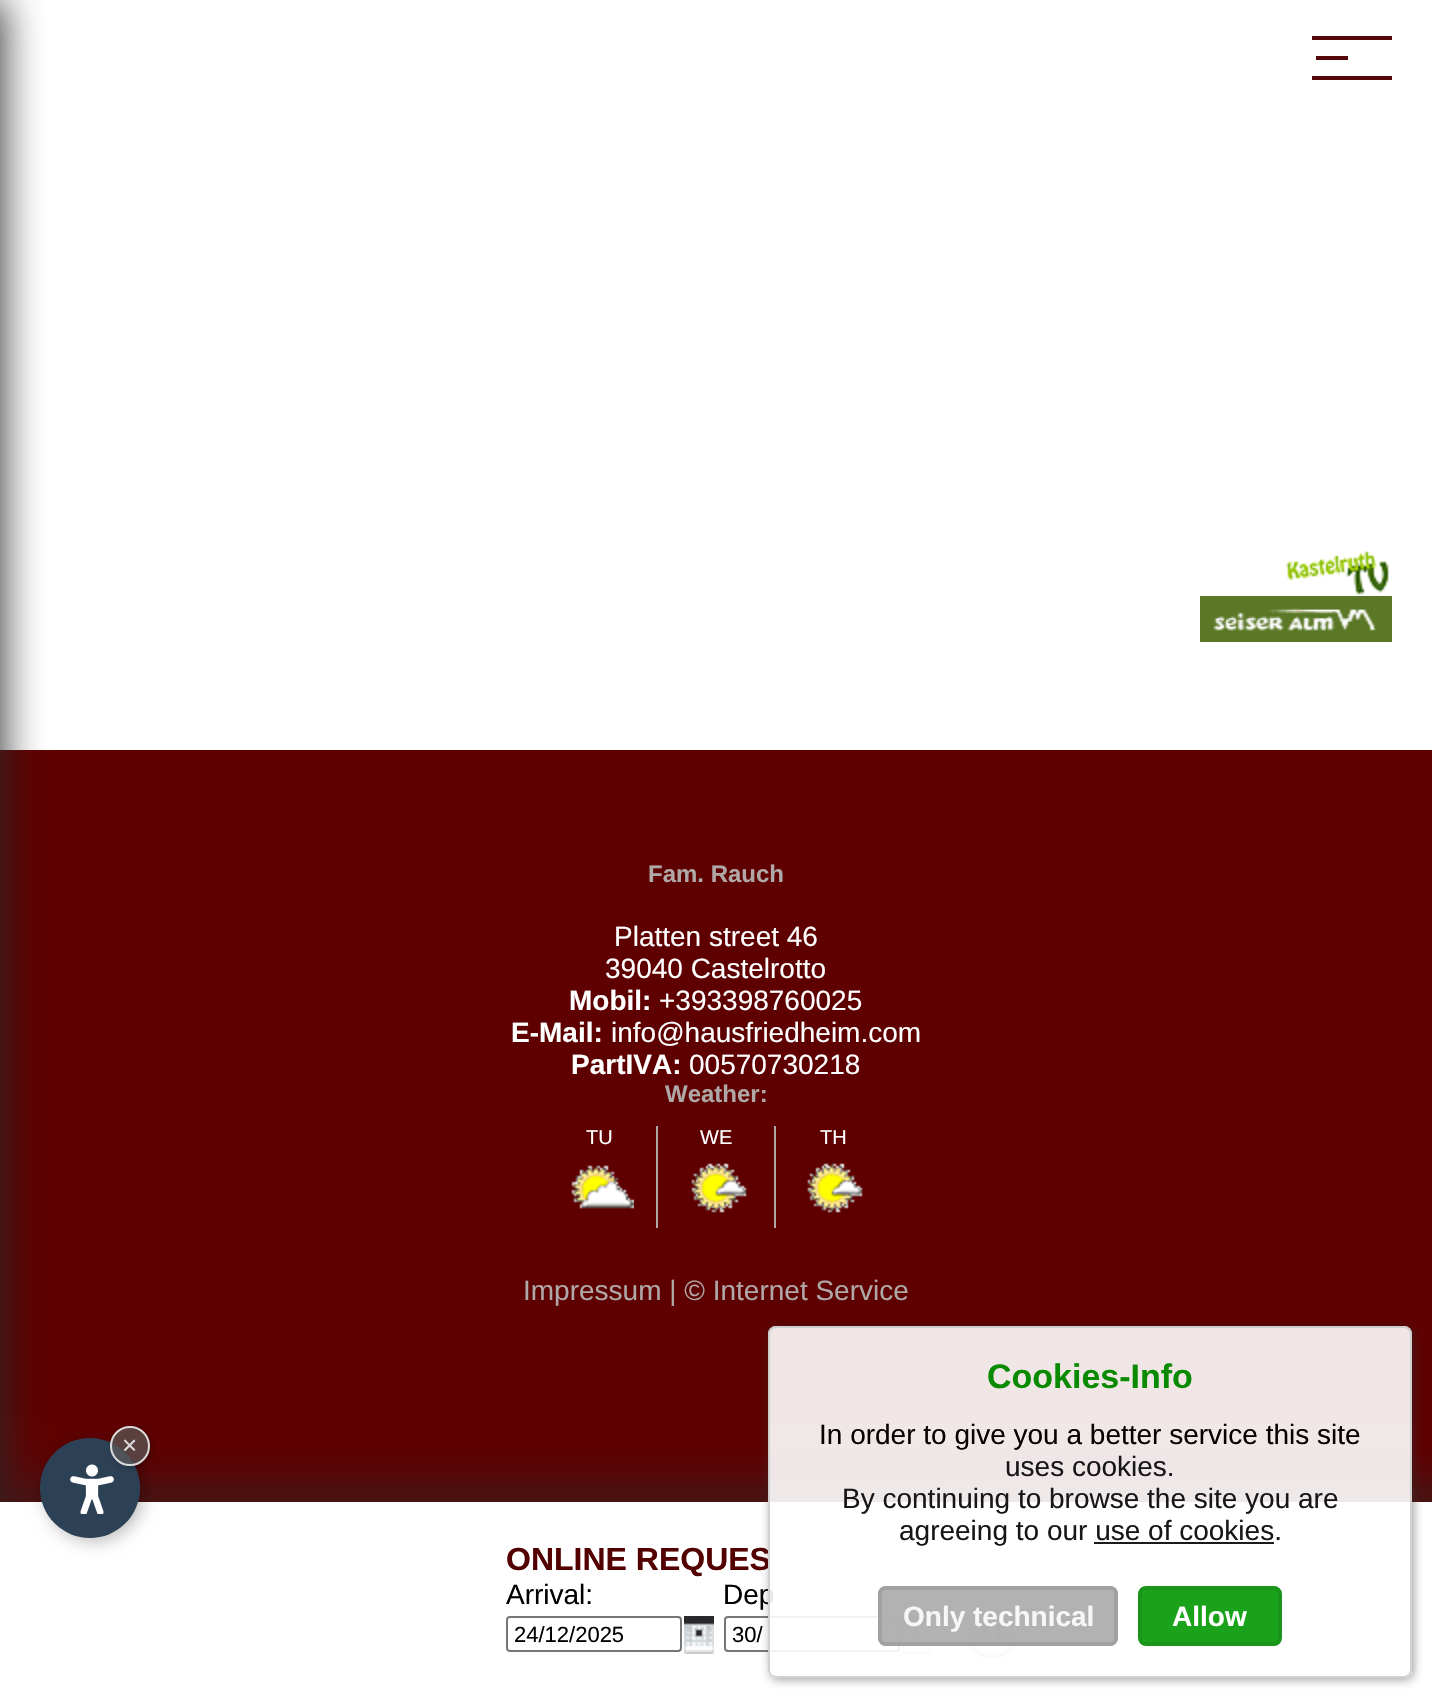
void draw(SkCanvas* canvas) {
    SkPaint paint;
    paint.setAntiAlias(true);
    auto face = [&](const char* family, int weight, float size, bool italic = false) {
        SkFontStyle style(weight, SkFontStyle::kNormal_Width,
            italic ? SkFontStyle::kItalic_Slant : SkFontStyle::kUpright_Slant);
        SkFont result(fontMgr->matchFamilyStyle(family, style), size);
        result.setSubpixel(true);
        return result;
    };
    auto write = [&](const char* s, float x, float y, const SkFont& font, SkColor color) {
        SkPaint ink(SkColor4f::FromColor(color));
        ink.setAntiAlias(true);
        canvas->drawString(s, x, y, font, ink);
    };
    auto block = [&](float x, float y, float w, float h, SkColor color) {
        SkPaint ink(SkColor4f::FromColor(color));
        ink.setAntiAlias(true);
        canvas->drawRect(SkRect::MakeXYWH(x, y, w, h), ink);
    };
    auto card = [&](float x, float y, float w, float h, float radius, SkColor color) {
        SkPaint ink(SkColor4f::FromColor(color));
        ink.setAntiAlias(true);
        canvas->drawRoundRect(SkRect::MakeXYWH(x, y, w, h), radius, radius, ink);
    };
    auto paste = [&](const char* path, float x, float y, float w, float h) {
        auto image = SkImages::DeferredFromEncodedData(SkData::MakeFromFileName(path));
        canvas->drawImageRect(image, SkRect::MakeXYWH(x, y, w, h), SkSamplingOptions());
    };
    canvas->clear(SK_ColorWHITE);
    block(1312, 36, 80, 4, SkColorSetRGB(86, 7, 7));
    block(1316, 56, 32, 4, SkColorSetRGB(86, 7, 7));
    block(1312, 76, 80, 4, SkColorSetRGB(86, 7, 7));
    block(0, 750, 1432, 752, SkColorSetRGB(94, 0, 0));
    paint.setColor(SkColorSetARGB(230, 41, 41, 41));
    paint.setMaskFilter(SkMaskFilter::MakeBlur(kNormal_SkBlurStyle, 20));
    canvas->drawRect(SkRect::MakeXYWH(-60, 0, 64, 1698), paint);
    paint.setMaskFilter(nullptr);
    paint.setColor(SkColorSetARGB(128, 41, 41, 41));
    paint.setMaskFilter(SkMaskFilter::MakeBlur(kNormal_SkBlurStyle, 20));
    canvas->drawRect(SkRect::MakeXYWH(0, 1482, 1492, 196), paint);
    paint.setMaskFilter(nullptr);
    block(0, 1502, 1432, 195, SK_ColorWHITE);
    paint.setColor(SkColorSetARGB(64, 0, 0, 0));
    paint.setMaskFilter(SkMaskFilter::MakeBlur(kNormal_SkBlurStyle, 8));
    canvas->drawRoundRect(SkRect::MakeXYWH(44, 1442, 100, 100), 50, 50, paint);
    paint.setMaskFilter(nullptr);
    paint.setColor(SkColorSetRGB(45, 65, 86));
    canvas->drawCircle(90, 1488, 50, paint);
    paste("pic1.png", 70, 1464, 44, 50);
    canvas->save();
    canvas->clipPath(SkPathBuilder(SkPathFillType::kEvenOdd).moveTo(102, 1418).lineTo(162, 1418).lineTo(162, 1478).lineTo(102, 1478).close().moveTo(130, 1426).cubicTo(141, 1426, 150, 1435, 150, 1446).cubicTo(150, 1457, 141, 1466, 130, 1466).cubicTo(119, 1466, 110, 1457, 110, 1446).cubicTo(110, 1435, 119, 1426, 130, 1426).close().detach(), true);
    paint.setColor(SkColorSetARGB(77, 0, 0, 0));
    paint.setMaskFilter(SkMaskFilter::MakeBlur(kNormal_SkBlurStyle, 3));
    canvas->drawRoundRect(SkRect::MakeXYWH(112, 1428, 40, 40), 20, 20, paint);
    paint.setMaskFilter(nullptr);
    canvas->restore();
    paint.setColor(SkColorSetARGB(179, 90, 90, 90));
    canvas->drawCircle(130, 1446, 19, paint);
    paint.setStyle(SkPaint::kStroke_Style);
    paint.setStrokeWidth(2);
    paint.setColor(SkColorSetRGB(218, 218, 218));
    canvas->drawCircle(130, 1446, 19, paint);
    auto kFont1 = face("Liberation Sans", 400, 26);
    write("×", 122, 1454, kFont1, SkColorSetRGB(218, 218, 218));
    auto kFont2 = face("Liberation Sans", 700, 24);
    write("Fam. Rauch", 648, 882, kFont2, SkColorSetRGB(176, 167, 167));
    auto kFont3 = face("Liberation Sans", 400, 28);
    write("Platten street 46", 614, 946, kFont3, SK_ColorWHITE);
    write("39040 Castelrotto", 605, 978, kFont3, SK_ColorWHITE);
    auto kFont4 = face("Liberation Sans", 700, 28);
    write("Mobil:", 569, 1010, kFont4, SK_ColorWHITE);
    write("+393398760025", 659, 1010, kFont3, SK_ColorWHITE);
    write("E-Mail:", 511, 1042, kFont4, SK_ColorWHITE);
    write("info@hausfriedheim.com", 611, 1042, kFont3, SK_ColorWHITE);
    write("PartIVA:", 571, 1074, kFont4, SK_ColorWHITE);
    write("00570730218", 689, 1074, kFont3, SK_ColorWHITE);
    write("Weather:", 665, 1102, kFont2, SkColorSetRGB(176, 167, 167));
    auto kFont5 = face("Liberation Sans", 400, 20);
    write("TU", 586, 1144, kFont5, SK_ColorWHITE);
    block(656, 1126, 2, 102, SkColorSetRGB(176, 167, 167));
    write("WE", 700, 1144, kFont5, SK_ColorWHITE);
    block(774, 1126, 2, 102, SkColorSetRGB(176, 167, 167));
    write("TH", 820, 1144, kFont5, SK_ColorWHITE);
    paste("pic2.png", 571, 1165, 63, 44);
    paste("pic3.png", 691, 1163, 56, 50);
    paste("pic3.png", 807, 1163, 56, 50);
    write("Impressum | © Internet Service", 523, 1300, kFont3, SkColorSetRGB(176, 167, 167));
    paste("pic4.png", 1285, 551, 105, 44);
    paste("pic5.png", 1200, 596, 192, 46);
    auto kFont6 = face("Liberation Sans", 700, 32);
    write("ONLINE REQUES", 506, 1570, kFont6, SkColorSetRGB(83, 0, 0));
    write("Arrival:", 506, 1604, kFont3, SK_ColorBLACK);
    write("Dep", 723, 1604, kFont3, SK_ColorBLACK);
    paint.setColor(SkColorSetRGB(118, 118, 118));
    canvas->drawRoundRect(SkRect::MakeXYWH(507, 1617, 174, 34), 3, 3, paint);
    auto kFont7 = face("Liberation Sans", 400, 22);
    write("24/12/2025", 514, 1642, kFont7, SK_ColorBLACK);
    paste("pic6.png", 684, 1616, 30, 38);
    canvas->drawRoundRect(SkRect::MakeXYWH(725, 1617, 174, 34), 3, 3, paint);
    write("30/", 732, 1642, kFont7, SK_ColorBLACK);
    paste("pic6.png", 902, 1616, 30, 38);
    paste("pic7.png", 968, 1610, 48, 48);
    canvas->save();
    canvas->clipPath(SkPathBuilder(SkPathFillType::kEvenOdd).moveTo(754, 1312).lineTo(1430, 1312).lineTo(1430, 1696).lineTo(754, 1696).close().moveTo(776, 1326).lineTo(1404, 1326).cubicTo(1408.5f, 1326, 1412, 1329.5f, 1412, 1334).lineTo(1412, 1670).cubicTo(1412, 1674.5f, 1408.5f, 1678, 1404, 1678).lineTo(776, 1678).cubicTo(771.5f, 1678, 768, 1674.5f, 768, 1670).lineTo(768, 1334).cubicTo(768, 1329.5f, 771.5f, 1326, 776, 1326).close().detach(), true);
    paint.setStyle(SkPaint::kFill_Style);
    paint.setColor(SkColorSetARGB(115, 50, 50, 50));
    paint.setMaskFilter(SkMaskFilter::MakeBlur(kNormal_SkBlurStyle, 5));
    canvas->drawRoundRect(SkRect::MakeXYWH(770, 1328, 644, 352), 8, 8, paint);
    paint.setMaskFilter(nullptr);
    canvas->restore();
    card(768, 1326, 644, 352, 8, SkColorSetARGB(230, 255, 255, 255));
    paint.setStyle(SkPaint::kStroke_Style);
    paint.setColor(SkColorSetARGB(230, 204, 204, 204));
    canvas->drawRoundRect(SkRect::MakeXYWH(769, 1327, 642, 350), 7, 7, paint);
    auto kFont8 = face("Liberation Sans", 700, 34);
    write("Cookies-Info", 987, 1388, kFont8, SkColorSetRGB(9, 138, 0));
    write("In order to give you a better service this site", 819, 1444, kFont3, SkColorSetRGB(9, 0, 0));
    write("uses cookies.", 1005, 1476, kFont3, SkColorSetRGB(24, 23, 23));
    write("By continuing to browse the site you are", 842, 1508, kFont3, SkColorSetRGB(24, 23, 23));
    write("agreeing to our use of cookies.", 899, 1540, kFont3, SkColorSetRGB(24, 23, 23));
    block(1094, 1542, 180, 2, SkColorSetRGB(26, 26, 26));
    card(878, 1586, 240, 60, 8, SkColorSetARGB(230, 170, 170, 170));
    paint.setStrokeWidth(4);
    paint.setColor(SkColorSetARGB(230, 159, 159, 159));
    canvas->drawRoundRect(SkRect::MakeXYWH(880, 1588, 236, 56), 6, 6, paint);
    write("Only technical", 903, 1626, kFont4, SkColorSetRGB(247, 247, 247));
    paint.setStyle(SkPaint::kFill_Style);
    paint.setColor(SkColorSetRGB(26, 163, 26));
    canvas->drawRoundRect(SkRect::MakeXYWH(1140, 1588, 140, 56), 6, 6, paint);
    paint.setStyle(SkPaint::kStroke_Style);
    paint.setColor(SkColorSetRGB(26, 148, 26));
    canvas->drawRoundRect(SkRect::MakeXYWH(1140, 1588, 140, 56), 6, 6, paint);
    write("Allow", 1172, 1626, kFont4, SK_ColorWHITE);
}
